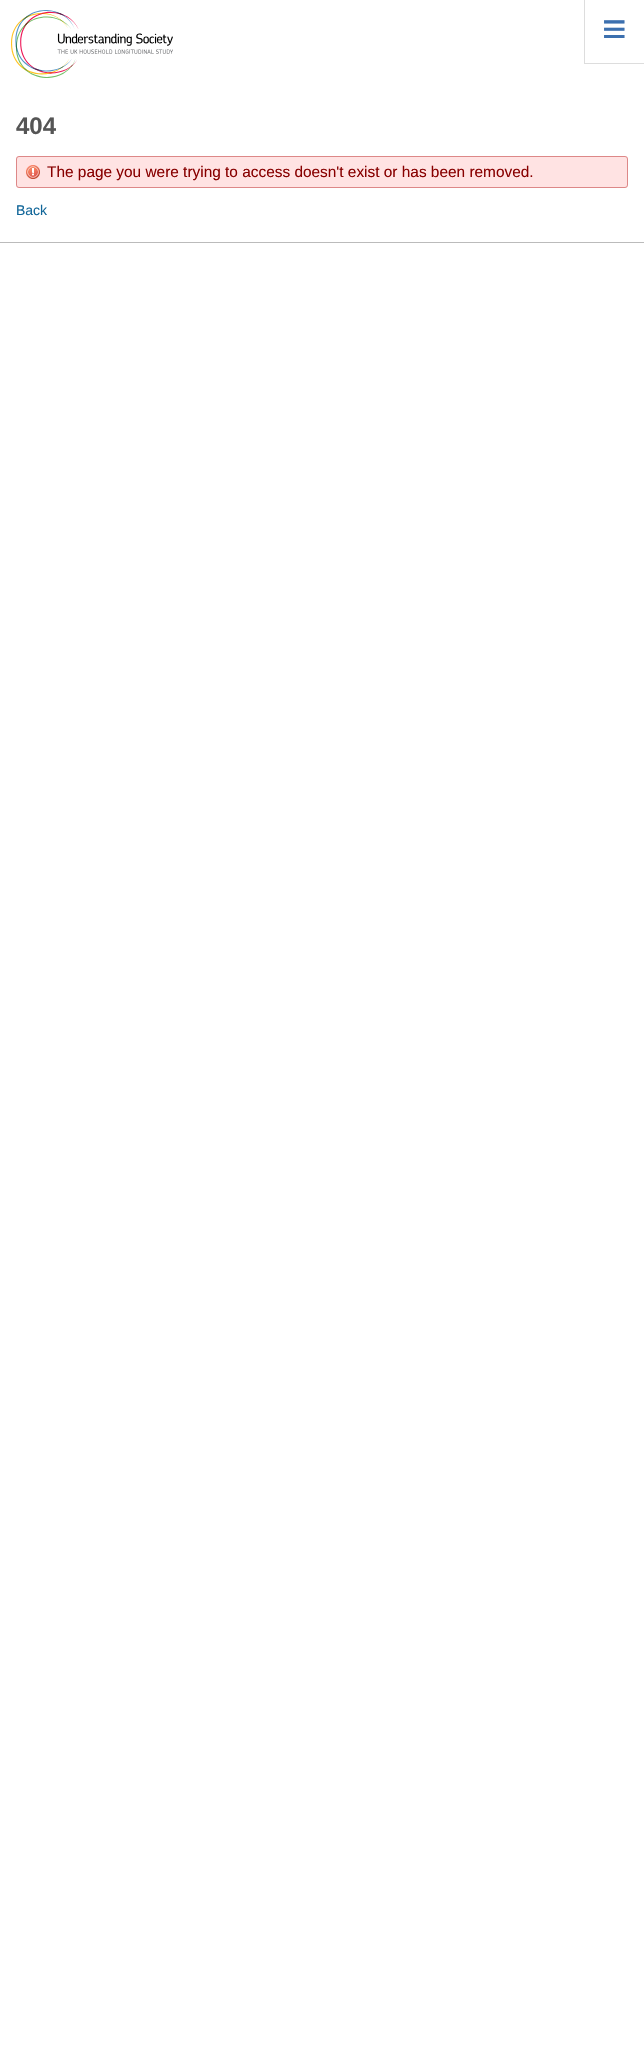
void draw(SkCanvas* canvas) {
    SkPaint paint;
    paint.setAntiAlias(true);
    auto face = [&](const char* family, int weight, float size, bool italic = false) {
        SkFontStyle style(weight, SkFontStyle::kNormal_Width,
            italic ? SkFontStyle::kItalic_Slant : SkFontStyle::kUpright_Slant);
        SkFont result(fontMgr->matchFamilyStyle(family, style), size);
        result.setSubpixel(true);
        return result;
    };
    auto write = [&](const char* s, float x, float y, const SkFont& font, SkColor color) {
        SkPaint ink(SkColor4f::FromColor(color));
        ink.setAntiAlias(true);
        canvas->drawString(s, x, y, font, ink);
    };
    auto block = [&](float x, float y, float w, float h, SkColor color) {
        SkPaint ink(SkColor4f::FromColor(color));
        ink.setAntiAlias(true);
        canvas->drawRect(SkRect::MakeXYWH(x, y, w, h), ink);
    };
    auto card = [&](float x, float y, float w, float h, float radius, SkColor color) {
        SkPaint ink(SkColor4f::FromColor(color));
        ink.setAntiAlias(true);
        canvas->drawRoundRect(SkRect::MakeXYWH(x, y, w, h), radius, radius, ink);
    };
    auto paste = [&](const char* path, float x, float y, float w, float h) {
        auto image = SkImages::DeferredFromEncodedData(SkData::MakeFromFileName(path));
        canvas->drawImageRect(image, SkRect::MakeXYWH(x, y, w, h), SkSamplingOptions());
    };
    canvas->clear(SK_ColorWHITE);
    paste("pic1.png", 11, 10, 162, 68);
    block(584, 63, 60, 1, SkColorSetRGB(221, 221, 221));
    block(584, 0, 1, 64, SkColorSetRGB(221, 221, 221));
    auto kFont1 = face("Liberation Sans", 400, 42);
    write("≡", 602, 43, kFont1, SkColorSetRGB(60, 112, 175));
    auto kFont2 = face("Liberation Sans", 700, 24);
    write("404", 16, 134, kFont2, SkColorSetRGB(85, 85, 85));
    card(16, 156, 612, 32, 3, SkColorSetRGB(255, 227, 227));
    paste("pic2.png", 26, 165, 14, 14);
    paint.setStyle(SkPaint::kStroke_Style);
    paint.setStrokeWidth(1);
    paint.setColor(SkColorSetRGB(221, 136, 136));
    canvas->drawRoundRect(SkRect::MakeXYWH(16.5f, 156.5f, 611, 31), 2.5f, 2.5f, paint);
    auto kFont3 = face("Liberation Sans", 400, 15.4f);
    write("The page you were trying to access doesn't exist or has been removed.", 47, 177, kFont3, SkColorSetRGB(136, 0, 0));
    auto kFont4 = face("Liberation Sans", 400, 14);
    write("Back", 16, 215, kFont4, SkColorSetRGB(17, 102, 153));
    block(0, 242, 644, 1, SkColorSetRGB(187, 187, 187));
}
